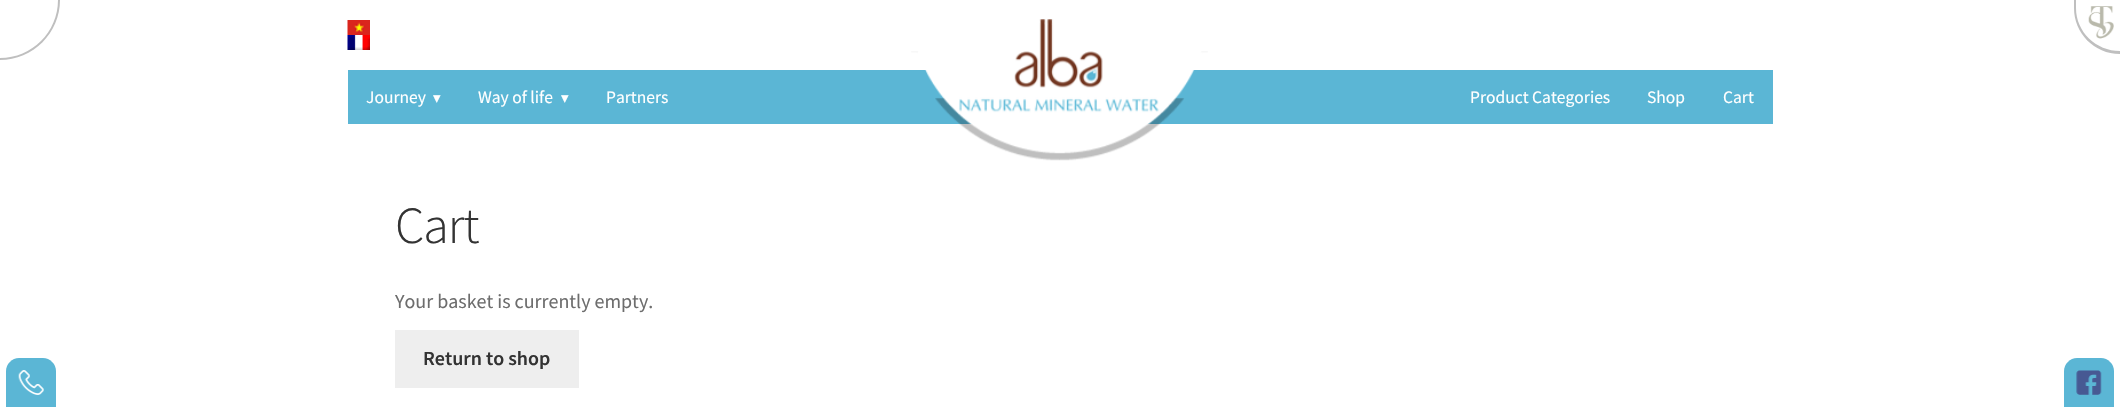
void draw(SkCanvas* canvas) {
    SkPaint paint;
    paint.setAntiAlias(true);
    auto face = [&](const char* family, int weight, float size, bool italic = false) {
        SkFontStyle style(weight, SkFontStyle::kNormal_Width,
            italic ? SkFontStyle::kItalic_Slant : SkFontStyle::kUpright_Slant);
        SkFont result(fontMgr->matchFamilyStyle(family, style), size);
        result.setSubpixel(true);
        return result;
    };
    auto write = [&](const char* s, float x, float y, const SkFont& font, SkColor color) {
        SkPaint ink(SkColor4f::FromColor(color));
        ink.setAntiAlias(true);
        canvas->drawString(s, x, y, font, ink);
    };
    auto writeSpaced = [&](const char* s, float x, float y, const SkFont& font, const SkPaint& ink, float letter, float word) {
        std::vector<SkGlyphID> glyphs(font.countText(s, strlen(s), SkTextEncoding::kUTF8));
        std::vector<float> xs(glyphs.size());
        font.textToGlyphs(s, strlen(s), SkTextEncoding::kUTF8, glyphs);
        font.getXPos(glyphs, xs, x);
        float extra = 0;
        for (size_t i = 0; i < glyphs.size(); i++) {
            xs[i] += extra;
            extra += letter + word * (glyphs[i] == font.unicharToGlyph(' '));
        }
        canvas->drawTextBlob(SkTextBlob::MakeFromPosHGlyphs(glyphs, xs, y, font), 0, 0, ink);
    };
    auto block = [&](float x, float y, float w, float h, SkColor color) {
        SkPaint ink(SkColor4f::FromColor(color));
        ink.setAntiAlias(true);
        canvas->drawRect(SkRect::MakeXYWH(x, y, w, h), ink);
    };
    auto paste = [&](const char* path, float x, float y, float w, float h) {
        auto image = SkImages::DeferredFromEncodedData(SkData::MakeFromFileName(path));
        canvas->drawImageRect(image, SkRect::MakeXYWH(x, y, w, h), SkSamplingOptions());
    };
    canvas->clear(SK_ColorWHITE);
    paint.setColor(SkColorSetRGB(191, 191, 191));
    canvas->drawPath(SkPathBuilder(SkPathFillType::kEvenOdd).moveTo(0, 0).lineTo(60, 0).cubicTo(60, 33, 33, 60, 0, 60).close().moveTo(0, 0).lineTo(58, 0).cubicTo(58, 32, 32, 58, 0, 58).close().detach(), paint);
    block(348, 70, 1425, 54, SkColorSetRGB(91, 182, 213));
    paste("pic1.png", 911, 19, 297, 142);
    canvas->drawPath(SkPathBuilder(SkPathFillType::kEvenOdd).moveTo(2074, 0).lineTo(2120, 0).lineTo(2120, 54).cubicTo(2094, 54, 2074, 33, 2074, 8).close().moveTo(2076, 0).lineTo(2120, 0).lineTo(2120, 51).cubicTo(2096, 51, 2076, 32, 2076, 8).close().detach(), paint);
    paste("pic2.png", 2088, 6, 26, 33);
    paint.setColor(SkColorSetRGB(91, 182, 213));
    canvas->drawPath(SkPathBuilder().moveTo(19, 358).lineTo(43, 358).cubicTo(50, 358, 56, 364, 56, 371).lineTo(56, 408).lineTo(6, 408).lineTo(6, 371).cubicTo(6, 364, 12, 358, 19, 358).close().detach(), paint);
    paste("pic3.png", 18, 370, 26, 25);
    canvas->drawPath(SkPathBuilder().moveTo(2077, 358).lineTo(2101, 358).cubicTo(2108, 358, 2114, 364, 2114, 371).lineTo(2114, 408).lineTo(2064, 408).lineTo(2064, 371).cubicTo(2064, 364, 2070, 358, 2077, 358).close().detach(), paint);
    paste("pic4.png", 2076, 370, 26, 25);
    paste("pic5.png", 347, 20, 23, 15);
    paste("pic6.png", 347, 35, 23, 15);
    auto kFont1 = face("Source Sans Pro", 400, 17.5f);
    write("Journey", 366, 103, kFont1, SK_ColorWHITE);
    auto kFont2 = face("DejaVu Sans", 400, 15);
    write("▾", 433, 103, kFont2, SK_ColorWHITE);
    write("Way of life", 478, 103, kFont1, SK_ColorWHITE);
    write("▾", 561, 103, kFont2, SK_ColorWHITE);
    write("Partners", 606, 103, kFont1, SK_ColorWHITE);
    write("Product Categories", 1470, 103, kFont1, SK_ColorWHITE);
    write("Shop", 1647, 103, kFont1, SK_ColorWHITE);
    write("Cart", 1723, 103, kFont1, SK_ColorWHITE);
    auto kFont3 = face("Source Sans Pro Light", 300, 52);
    paint.setColor(SkColorSetRGB(51, 51, 51));
    writeSpaced("Cart", 395, 243, kFont3, paint, -1, 0);
    auto kFont4 = face("Source Sans Pro", 400, 20);
    write("Your basket is currently empty.", 395, 308, kFont4, SkColorSetRGB(109, 109, 109));
    block(395, 330, 184, 58, SkColorSetRGB(238, 238, 238));
    auto kFont5 = face("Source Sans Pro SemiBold", 600, 20);
    write("Return to shop", 423, 365, kFont5, SkColorSetRGB(51, 51, 51));
}
